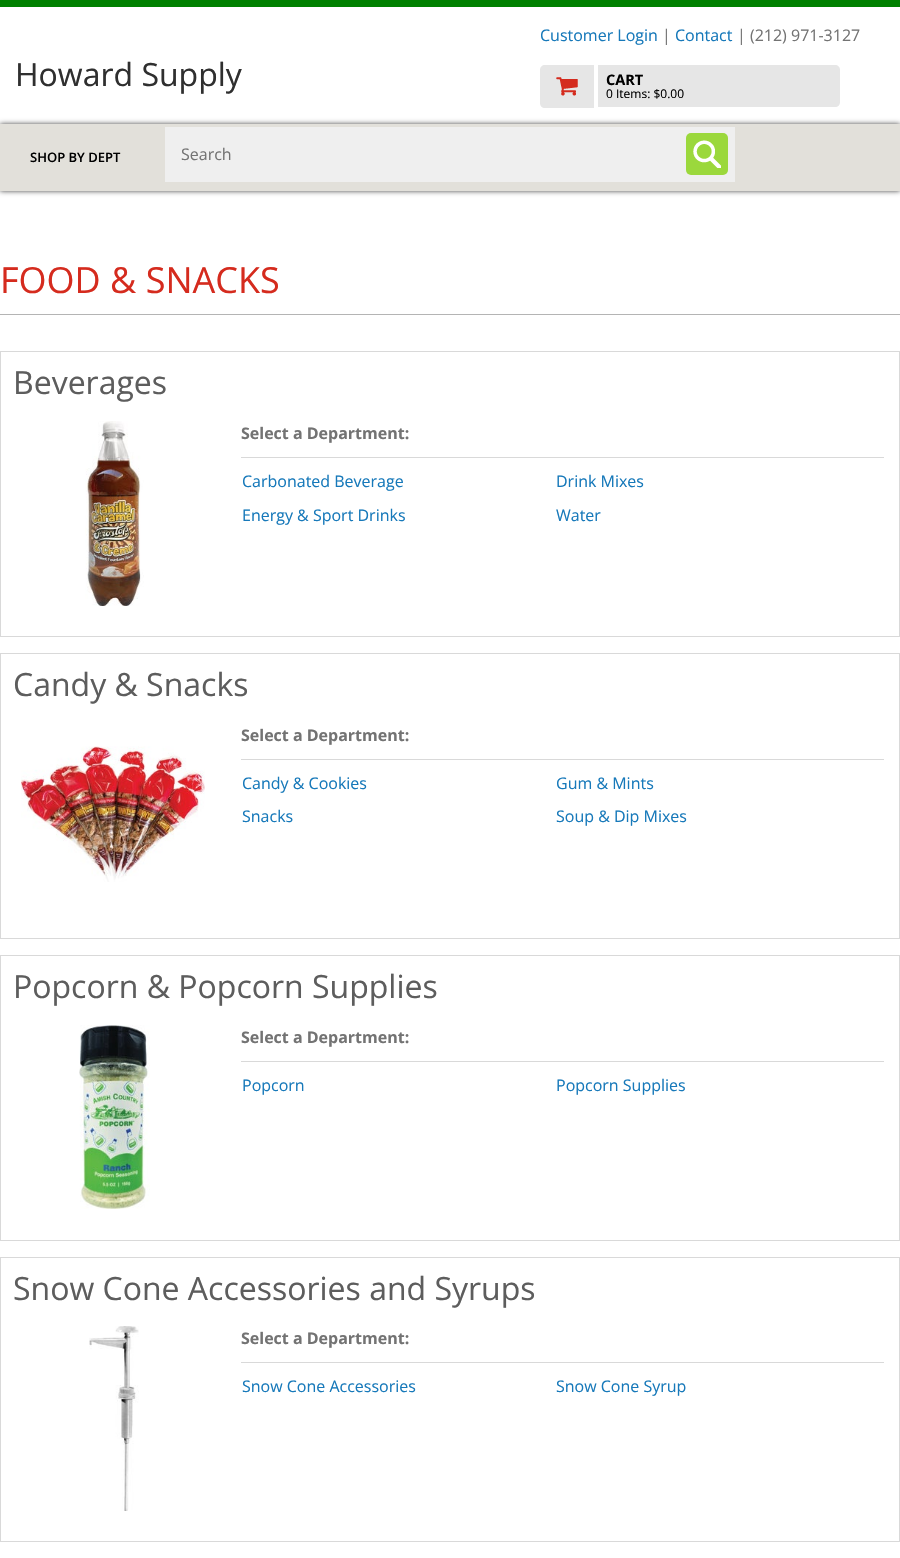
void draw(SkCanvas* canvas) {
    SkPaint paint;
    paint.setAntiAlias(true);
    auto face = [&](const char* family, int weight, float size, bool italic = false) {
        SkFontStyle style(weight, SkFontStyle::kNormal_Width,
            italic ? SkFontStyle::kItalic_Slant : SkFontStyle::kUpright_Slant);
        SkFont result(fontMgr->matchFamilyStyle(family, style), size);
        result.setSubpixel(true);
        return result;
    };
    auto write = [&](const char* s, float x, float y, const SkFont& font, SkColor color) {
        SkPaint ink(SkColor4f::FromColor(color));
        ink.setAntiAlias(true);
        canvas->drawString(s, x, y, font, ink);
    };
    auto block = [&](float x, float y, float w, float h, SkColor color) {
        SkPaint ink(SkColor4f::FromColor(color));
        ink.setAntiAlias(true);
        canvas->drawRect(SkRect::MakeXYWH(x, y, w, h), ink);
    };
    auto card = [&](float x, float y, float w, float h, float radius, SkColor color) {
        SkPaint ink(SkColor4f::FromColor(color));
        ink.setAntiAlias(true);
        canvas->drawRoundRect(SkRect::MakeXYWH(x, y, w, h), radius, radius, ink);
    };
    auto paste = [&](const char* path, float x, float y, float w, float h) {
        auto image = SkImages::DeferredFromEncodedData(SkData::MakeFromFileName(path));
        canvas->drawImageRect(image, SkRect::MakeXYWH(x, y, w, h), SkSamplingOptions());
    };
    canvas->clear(SK_ColorWHITE);
    block(0, 0, 900, 7, SkColorSetRGB(0, 128, 0));
    auto kFont1 = face("Open Sans", 400, 32);
    write("Howard Supply", 15, 86, kFont1, SkColorSetRGB(47, 47, 47));
    auto kFont2 = face("Open Sans", 400, 16);
    write("Customer Login", 540, 41, kFont2, SkColorSetRGB(23, 121, 186));
    write("|", 662, 41, kFont2, SkColorSetRGB(115, 115, 115));
    write("Contact", 675, 41, kFont2, SkColorSetRGB(23, 121, 186));
    write("| (212) 971-3127", 737, 41, kFont2, SkColorSetRGB(115, 115, 115));
    paint.setColor(SkColorSetRGB(230, 230, 230));
    canvas->drawPath(SkPathBuilder().moveTo(545, 65).lineTo(594, 65).lineTo(594, 108).lineTo(545, 108).cubicTo(542, 108, 540, 106, 540, 103).lineTo(540, 70).cubicTo(540, 67, 542, 65, 545, 65).close().detach(), paint);
    paste("pic1.png", 556, 77, 22, 19);
    canvas->drawPath(SkPathBuilder().moveTo(598, 65).lineTo(835, 65).cubicTo(838, 65, 840, 67, 840, 70).lineTo(840, 102).cubicTo(840, 105, 838, 107, 835, 107).lineTo(598, 107).close().detach(), paint);
    auto kFont3 = face("Open Sans", 700, 14.5f);
    write("CART", 606, 85, kFont3, SK_ColorBLACK);
    auto kFont4 = face("Open Sans", 400, 12);
    write("0 Items: $0.00", 606, 98, kFont4, SK_ColorBLACK);
    paint.setColor(SkColorSetRGB(68, 68, 68));
    paint.setMaskFilter(SkMaskFilter::MakeBlur(kNormal_SkBlurStyle, 2.5f));
    canvas->drawRect(SkRect::MakeXYWH(0, 124, 900, 67), paint);
    paint.setMaskFilter(nullptr);
    block(0, 124, 900, 67, SkColorSetRGB(226, 224, 218));
    auto kFont5 = face("Open Sans", 600, 13);
    write("SHOP BY DEPT", 30, 162, kFont5, SK_ColorBLACK);
    block(165, 127, 570, 55, SkColorSetRGB(239, 239, 239));
    write("Search", 181, 160, kFont2, SkColorSetRGB(115, 115, 115));
    card(686, 133, 42, 42, 5, SkColorSetRGB(155, 216, 60));
    paste("pic2.png", 693, 140, 28, 28);
    block(0, 314, 900, 1, SkColorSetRGB(180, 180, 180));
    auto kFont6 = face("Open Sans", 400, 36);
    write("FOOD & SNACKS", 0, 293, kFont6, SkColorSetRGB(213, 43, 30));
    paint.setStyle(SkPaint::kStroke_Style);
    paint.setStrokeWidth(1);
    paint.setColor(SkColorSetRGB(217, 217, 217));
    canvas->drawRect(SkRect::MakeXYWH(0.5f, 351.5f, 899, 285), paint);
    write("Beverages", 13, 394, kFont1, SkColorSetRGB(93, 93, 93));
    paste("pic3.png", 85, 421, 59, 185);
    block(241, 457, 643, 1, SkColorSetRGB(217, 217, 217));
    auto kFont7 = face("Open Sans", 700, 16);
    write("Select a Department:", 241, 439, kFont7, SkColorSetRGB(115, 115, 115));
    write("Carbonated Beverage", 242, 487, kFont2, SkColorSetRGB(23, 121, 186));
    write("Drink Mixes", 556, 487, kFont2, SkColorSetRGB(23, 121, 186));
    write("Energy & Sport Drinks", 242, 521, kFont2, SkColorSetRGB(23, 121, 186));
    write("Water", 556, 521, kFont2, SkColorSetRGB(23, 121, 186));
    canvas->drawRect(SkRect::MakeXYWH(0.5f, 653.5f, 899, 285), paint);
    write("Candy & Snacks", 13, 696, kFont1, SkColorSetRGB(93, 93, 93));
    paste("pic4.png", 21, 746, 184, 136);
    block(241, 759, 643, 1, SkColorSetRGB(217, 217, 217));
    write("Select a Department:", 241, 741, kFont7, SkColorSetRGB(115, 115, 115));
    write("Candy & Cookies", 242, 789, kFont2, SkColorSetRGB(23, 121, 186));
    write("Gum & Mints", 556, 789, kFont2, SkColorSetRGB(23, 121, 186));
    write("Snacks", 242, 822, kFont2, SkColorSetRGB(23, 121, 186));
    write("Soup & Dip Mixes", 556, 822, kFont2, SkColorSetRGB(23, 121, 186));
    canvas->drawRect(SkRect::MakeXYWH(0.5f, 955.5f, 899, 285), paint);
    write("Popcorn & Popcorn Supplies", 13, 998, kFont1, SkColorSetRGB(93, 93, 93));
    paste("pic5.png", 79, 1025, 71, 184);
    block(241, 1061, 643, 1, SkColorSetRGB(217, 217, 217));
    write("Select a Department:", 241, 1043, kFont7, SkColorSetRGB(115, 115, 115));
    write("Popcorn", 242, 1091, kFont2, SkColorSetRGB(23, 121, 186));
    write("Popcorn Supplies", 556, 1091, kFont2, SkColorSetRGB(23, 121, 186));
    canvas->drawRect(SkRect::MakeXYWH(0.5f, 1257.5f, 899, 284), paint);
    write("Snow Cone Accessories and Syrups", 13, 1300, kFont1, SkColorSetRGB(93, 93, 93));
    paste("pic6.png", 89, 1326, 50, 185);
    block(241, 1362, 643, 1, SkColorSetRGB(217, 217, 217));
    write("Select a Department:", 241, 1344, kFont7, SkColorSetRGB(115, 115, 115));
    write("Snow Cone Accessories", 242, 1392, kFont2, SkColorSetRGB(23, 121, 186));
    write("Snow Cone Syrup", 556, 1392, kFont2, SkColorSetRGB(23, 121, 186));
}
